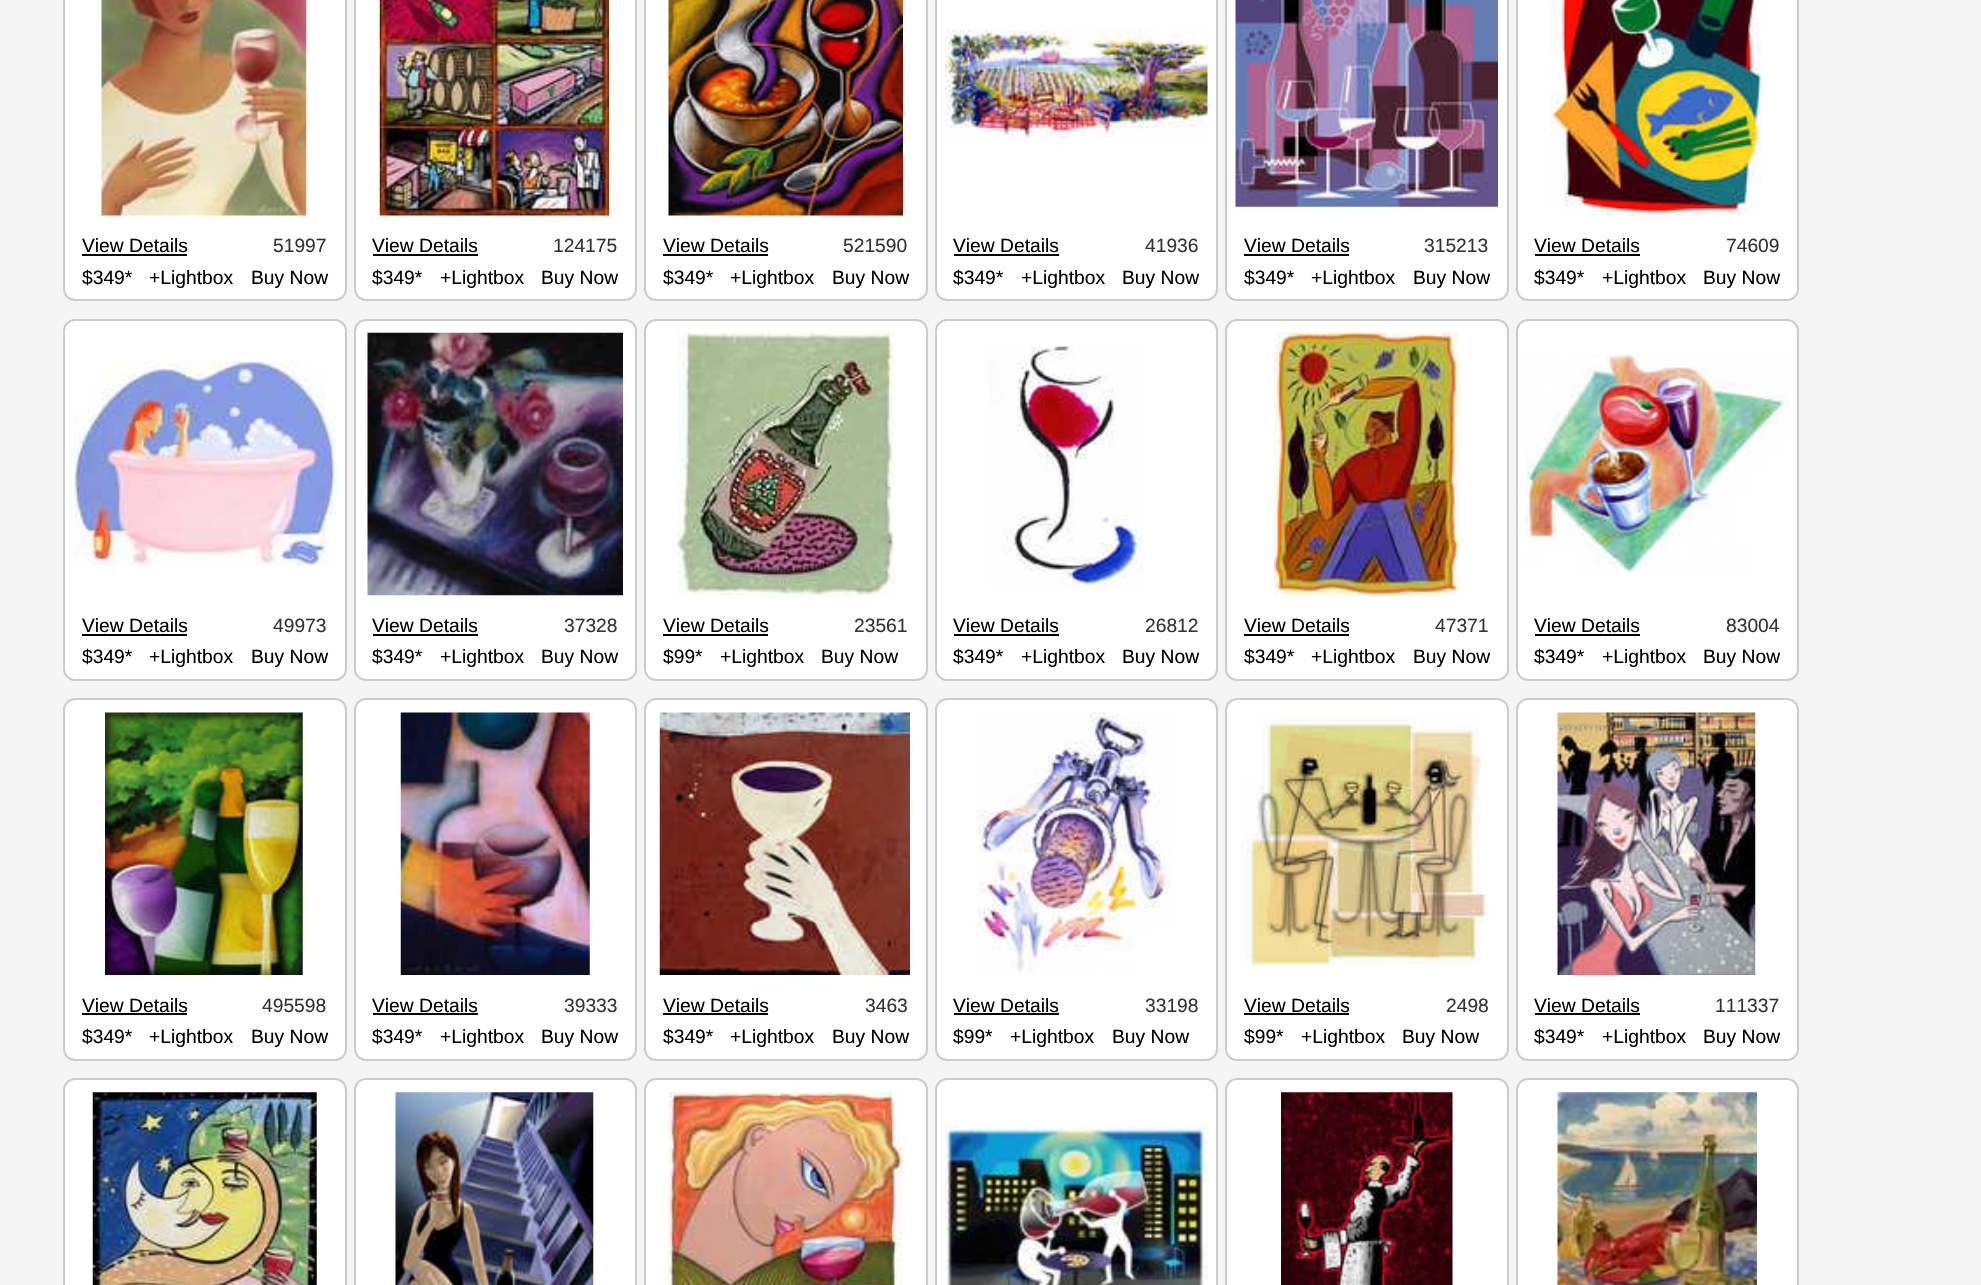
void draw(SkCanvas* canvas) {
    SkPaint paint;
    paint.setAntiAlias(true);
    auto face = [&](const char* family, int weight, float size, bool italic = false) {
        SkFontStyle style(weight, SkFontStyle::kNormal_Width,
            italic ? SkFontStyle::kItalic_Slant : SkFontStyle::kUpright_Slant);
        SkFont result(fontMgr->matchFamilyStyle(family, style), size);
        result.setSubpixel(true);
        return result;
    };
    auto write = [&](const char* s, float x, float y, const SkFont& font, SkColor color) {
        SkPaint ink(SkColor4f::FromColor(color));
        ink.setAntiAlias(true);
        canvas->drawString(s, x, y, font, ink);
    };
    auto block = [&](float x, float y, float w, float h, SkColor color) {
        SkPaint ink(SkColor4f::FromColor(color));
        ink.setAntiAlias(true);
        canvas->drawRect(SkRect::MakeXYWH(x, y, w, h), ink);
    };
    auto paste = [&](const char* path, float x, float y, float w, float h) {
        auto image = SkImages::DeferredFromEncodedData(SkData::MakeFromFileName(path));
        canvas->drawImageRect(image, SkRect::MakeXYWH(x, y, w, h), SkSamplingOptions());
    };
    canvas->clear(SkColorSetRGB(245, 245, 245));
    paint.setColor(SK_ColorWHITE);
    canvas->drawRoundRect(SkRect::MakeXYWH(64, -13, 282, 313), 11, 11, paint);
    paint.setStyle(SkPaint::kStroke_Style);
    paint.setStrokeWidth(2);
    paint.setColor(SkColorSetRGB(204, 204, 204));
    canvas->drawRoundRect(SkRect::MakeXYWH(64, -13, 282, 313), 11, 11, paint);
    paste("pic1.png", 101, 0, 206, 216);
    auto kFont1 = face("Liberation Sans", 400, 19.25f);
    write("View Details", 82, 252, kFont1, SK_ColorBLACK);
    block(82, 254, 105, 2, SK_ColorBLACK);
    write("51997", 273, 252, kFont1, SkColorSetRGB(51, 51, 51));
    write("$349*", 82, 284, kFont1, SK_ColorBLACK);
    write("+Lightbox", 149, 284, kFont1, SK_ColorBLACK);
    write("Buy Now", 251, 284, kFont1, SK_ColorBLACK);
    paint.setStyle(SkPaint::kFill_Style);
    paint.setColor(SK_ColorWHITE);
    canvas->drawRoundRect(SkRect::MakeXYWH(355, -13, 281, 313), 11, 11, paint);
    paint.setStyle(SkPaint::kStroke_Style);
    paint.setColor(SkColorSetRGB(204, 204, 204));
    canvas->drawRoundRect(SkRect::MakeXYWH(355, -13, 281, 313), 11, 11, paint);
    paste("pic2.png", 379, 0, 230, 216);
    write("View Details", 372, 252, kFont1, SK_ColorBLACK);
    block(373, 254, 105, 2, SK_ColorBLACK);
    write("124175", 553, 252, kFont1, SkColorSetRGB(51, 51, 51));
    write("$349*", 372, 284, kFont1, SK_ColorBLACK);
    write("+Lightbox", 440, 284, kFont1, SK_ColorBLACK);
    write("Buy Now", 541, 284, kFont1, SK_ColorBLACK);
    paint.setStyle(SkPaint::kFill_Style);
    paint.setColor(SK_ColorWHITE);
    canvas->drawRoundRect(SkRect::MakeXYWH(645, -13, 282, 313), 11, 11, paint);
    paint.setStyle(SkPaint::kStroke_Style);
    paint.setColor(SkColorSetRGB(204, 204, 204));
    canvas->drawRoundRect(SkRect::MakeXYWH(645, -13, 282, 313), 11, 11, paint);
    paste("pic3.png", 668, 0, 235, 216);
    write("View Details", 663, 252, kFont1, SK_ColorBLACK);
    block(663, 254, 105, 2, SK_ColorBLACK);
    write("521590", 843, 252, kFont1, SkColorSetRGB(51, 51, 51));
    write("$349*", 663, 284, kFont1, SK_ColorBLACK);
    write("+Lightbox", 730, 284, kFont1, SK_ColorBLACK);
    write("Buy Now", 832, 284, kFont1, SK_ColorBLACK);
    paint.setStyle(SkPaint::kFill_Style);
    paint.setColor(SK_ColorWHITE);
    canvas->drawRoundRect(SkRect::MakeXYWH(936, -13, 281, 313), 11, 11, paint);
    paint.setStyle(SkPaint::kStroke_Style);
    paint.setColor(SkColorSetRGB(204, 204, 204));
    canvas->drawRoundRect(SkRect::MakeXYWH(936, -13, 281, 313), 11, 11, paint);
    paste("pic4.png", 945, 30, 263, 109);
    write("View Details", 953, 252, kFont1, SK_ColorBLACK);
    block(954, 254, 105, 2, SK_ColorBLACK);
    write("41936", 1145, 252, kFont1, SkColorSetRGB(51, 51, 51));
    write("$349*", 953, 284, kFont1, SK_ColorBLACK);
    write("+Lightbox", 1021, 284, kFont1, SK_ColorBLACK);
    write("Buy Now", 1122, 284, kFont1, SK_ColorBLACK);
    paint.setStyle(SkPaint::kFill_Style);
    paint.setColor(SK_ColorWHITE);
    canvas->drawRoundRect(SkRect::MakeXYWH(1226, -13, 282, 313), 11, 11, paint);
    paint.setStyle(SkPaint::kStroke_Style);
    paint.setColor(SkColorSetRGB(204, 204, 204));
    canvas->drawRoundRect(SkRect::MakeXYWH(1226, -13, 282, 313), 11, 11, paint);
    paste("pic5.png", 1235, 0, 263, 207);
    write("View Details", 1244, 252, kFont1, SK_ColorBLACK);
    block(1244, 254, 105, 2, SK_ColorBLACK);
    write("315213", 1424, 252, kFont1, SkColorSetRGB(51, 51, 51));
    write("$349*", 1244, 284, kFont1, SK_ColorBLACK);
    write("+Lightbox", 1311, 284, kFont1, SK_ColorBLACK);
    write("Buy Now", 1413, 284, kFont1, SK_ColorBLACK);
    paint.setStyle(SkPaint::kFill_Style);
    paint.setColor(SK_ColorWHITE);
    canvas->drawRoundRect(SkRect::MakeXYWH(1517, -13, 281, 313), 11, 11, paint);
    paint.setStyle(SkPaint::kStroke_Style);
    paint.setColor(SkColorSetRGB(204, 204, 204));
    canvas->drawRoundRect(SkRect::MakeXYWH(1517, -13, 281, 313), 11, 11, paint);
    paste("pic6.png", 1550, 0, 211, 216);
    write("View Details", 1534, 252, kFont1, SK_ColorBLACK);
    block(1535, 254, 105, 2, SK_ColorBLACK);
    write("74609", 1726, 252, kFont1, SkColorSetRGB(51, 51, 51));
    write("$349*", 1534, 284, kFont1, SK_ColorBLACK);
    write("+Lightbox", 1602, 284, kFont1, SK_ColorBLACK);
    write("Buy Now", 1703, 284, kFont1, SK_ColorBLACK);
    paint.setStyle(SkPaint::kFill_Style);
    paint.setColor(SK_ColorWHITE);
    canvas->drawRoundRect(SkRect::MakeXYWH(64, 320, 282, 360), 11, 11, paint);
    paint.setStyle(SkPaint::kStroke_Style);
    paint.setColor(SkColorSetRGB(204, 204, 204));
    canvas->drawRoundRect(SkRect::MakeXYWH(64, 320, 282, 360), 11, 11, paint);
    paste("pic7.png", 73, 360, 263, 206);
    write("View Details", 82, 632, kFont1, SK_ColorBLACK);
    block(82, 634, 105, 2, SK_ColorBLACK);
    write("49973", 273, 632, kFont1, SkColorSetRGB(51, 51, 51));
    write("$349*", 82, 663, kFont1, SK_ColorBLACK);
    write("+Lightbox", 149, 663, kFont1, SK_ColorBLACK);
    write("Buy Now", 251, 663, kFont1, SK_ColorBLACK);
    paint.setStyle(SkPaint::kFill_Style);
    paint.setColor(SK_ColorWHITE);
    canvas->drawRoundRect(SkRect::MakeXYWH(355, 320, 281, 360), 11, 11, paint);
    paint.setStyle(SkPaint::kStroke_Style);
    paint.setColor(SkColorSetRGB(204, 204, 204));
    canvas->drawRoundRect(SkRect::MakeXYWH(355, 320, 281, 360), 11, 11, paint);
    paste("pic8.png", 367, 332, 256, 264);
    write("View Details", 372, 632, kFont1, SK_ColorBLACK);
    block(373, 634, 105, 2, SK_ColorBLACK);
    write("37328", 564, 632, kFont1, SkColorSetRGB(51, 51, 51));
    write("$349*", 372, 663, kFont1, SK_ColorBLACK);
    write("+Lightbox", 440, 663, kFont1, SK_ColorBLACK);
    write("Buy Now", 541, 663, kFont1, SK_ColorBLACK);
    paint.setStyle(SkPaint::kFill_Style);
    paint.setColor(SK_ColorWHITE);
    canvas->drawRoundRect(SkRect::MakeXYWH(645, 320, 282, 360), 11, 11, paint);
    paint.setStyle(SkPaint::kStroke_Style);
    paint.setColor(SkColorSetRGB(204, 204, 204));
    canvas->drawRoundRect(SkRect::MakeXYWH(645, 320, 282, 360), 11, 11, paint);
    paste("pic9.png", 677, 332, 218, 264);
    write("View Details", 663, 632, kFont1, SK_ColorBLACK);
    block(663, 634, 105, 2, SK_ColorBLACK);
    write("23561", 854, 632, kFont1, SkColorSetRGB(51, 51, 51));
    write("$99*", 663, 663, kFont1, SK_ColorBLACK);
    write("+Lightbox", 720, 663, kFont1, SK_ColorBLACK);
    write("Buy Now", 821, 663, kFont1, SK_ColorBLACK);
    paint.setStyle(SkPaint::kFill_Style);
    paint.setColor(SK_ColorWHITE);
    canvas->drawRoundRect(SkRect::MakeXYWH(936, 320, 281, 360), 11, 11, paint);
    paint.setStyle(SkPaint::kStroke_Style);
    paint.setColor(SkColorSetRGB(204, 204, 204));
    canvas->drawRoundRect(SkRect::MakeXYWH(936, 320, 281, 360), 11, 11, paint);
    paste("pic10.png", 989, 346, 155, 240);
    write("View Details", 953, 632, kFont1, SK_ColorBLACK);
    block(954, 634, 105, 2, SK_ColorBLACK);
    write("26812", 1145, 632, kFont1, SkColorSetRGB(51, 51, 51));
    write("$349*", 953, 663, kFont1, SK_ColorBLACK);
    write("+Lightbox", 1021, 663, kFont1, SK_ColorBLACK);
    write("Buy Now", 1122, 663, kFont1, SK_ColorBLACK);
    paint.setStyle(SkPaint::kFill_Style);
    paint.setColor(SK_ColorWHITE);
    canvas->drawRoundRect(SkRect::MakeXYWH(1226, 320, 282, 360), 11, 11, paint);
    paint.setStyle(SkPaint::kStroke_Style);
    paint.setColor(SkColorSetRGB(204, 204, 204));
    canvas->drawRoundRect(SkRect::MakeXYWH(1226, 320, 282, 360), 11, 11, paint);
    paste("pic11.png", 1274, 332, 184, 264);
    write("View Details", 1244, 632, kFont1, SK_ColorBLACK);
    block(1244, 634, 105, 2, SK_ColorBLACK);
    write("47371", 1435, 632, kFont1, SkColorSetRGB(51, 51, 51));
    write("$349*", 1244, 663, kFont1, SK_ColorBLACK);
    write("+Lightbox", 1311, 663, kFont1, SK_ColorBLACK);
    write("Buy Now", 1413, 663, kFont1, SK_ColorBLACK);
    paint.setStyle(SkPaint::kFill_Style);
    paint.setColor(SK_ColorWHITE);
    canvas->drawRoundRect(SkRect::MakeXYWH(1517, 320, 281, 360), 11, 11, paint);
    paint.setStyle(SkPaint::kStroke_Style);
    paint.setColor(SkColorSetRGB(204, 204, 204));
    canvas->drawRoundRect(SkRect::MakeXYWH(1517, 320, 281, 360), 11, 11, paint);
    paste("pic12.png", 1526, 353, 263, 220);
    write("View Details", 1534, 632, kFont1, SK_ColorBLACK);
    block(1535, 634, 105, 2, SK_ColorBLACK);
    write("83004", 1726, 632, kFont1, SkColorSetRGB(51, 51, 51));
    write("$349*", 1534, 663, kFont1, SK_ColorBLACK);
    write("+Lightbox", 1602, 663, kFont1, SK_ColorBLACK);
    write("Buy Now", 1703, 663, kFont1, SK_ColorBLACK);
    paint.setStyle(SkPaint::kFill_Style);
    paint.setColor(SK_ColorWHITE);
    canvas->drawRoundRect(SkRect::MakeXYWH(64, 699, 282, 361), 11, 11, paint);
    paint.setStyle(SkPaint::kStroke_Style);
    paint.setColor(SkColorSetRGB(204, 204, 204));
    canvas->drawRoundRect(SkRect::MakeXYWH(64, 699, 282, 361), 11, 11, paint);
    paste("pic13.png", 105, 712, 198, 263);
    write("View Details", 82, 1012, kFont1, SK_ColorBLACK);
    block(82, 1013, 105, 2, SK_ColorBLACK);
    write("495598", 262, 1012, kFont1, SkColorSetRGB(51, 51, 51));
    write("$349*", 82, 1043, kFont1, SK_ColorBLACK);
    write("+Lightbox", 149, 1043, kFont1, SK_ColorBLACK);
    write("Buy Now", 251, 1043, kFont1, SK_ColorBLACK);
    paint.setStyle(SkPaint::kFill_Style);
    paint.setColor(SK_ColorWHITE);
    canvas->drawRoundRect(SkRect::MakeXYWH(355, 699, 281, 361), 11, 11, paint);
    paint.setStyle(SkPaint::kStroke_Style);
    paint.setColor(SkColorSetRGB(204, 204, 204));
    canvas->drawRoundRect(SkRect::MakeXYWH(355, 699, 281, 361), 11, 11, paint);
    paste("pic14.png", 400, 712, 190, 263);
    write("View Details", 372, 1012, kFont1, SK_ColorBLACK);
    block(373, 1013, 105, 2, SK_ColorBLACK);
    write("39333", 564, 1012, kFont1, SkColorSetRGB(51, 51, 51));
    write("$349*", 372, 1043, kFont1, SK_ColorBLACK);
    write("+Lightbox", 440, 1043, kFont1, SK_ColorBLACK);
    write("Buy Now", 541, 1043, kFont1, SK_ColorBLACK);
    paint.setStyle(SkPaint::kFill_Style);
    paint.setColor(SK_ColorWHITE);
    canvas->drawRoundRect(SkRect::MakeXYWH(645, 699, 282, 361), 11, 11, paint);
    paint.setStyle(SkPaint::kStroke_Style);
    paint.setColor(SkColorSetRGB(204, 204, 204));
    canvas->drawRoundRect(SkRect::MakeXYWH(645, 699, 282, 361), 11, 11, paint);
    paste("pic15.png", 659, 712, 251, 263);
    write("View Details", 663, 1012, kFont1, SK_ColorBLACK);
    block(663, 1013, 105, 2, SK_ColorBLACK);
    write("3463", 865, 1012, kFont1, SkColorSetRGB(51, 51, 51));
    write("$349*", 663, 1043, kFont1, SK_ColorBLACK);
    write("+Lightbox", 730, 1043, kFont1, SK_ColorBLACK);
    write("Buy Now", 832, 1043, kFont1, SK_ColorBLACK);
    paint.setStyle(SkPaint::kFill_Style);
    paint.setColor(SK_ColorWHITE);
    canvas->drawRoundRect(SkRect::MakeXYWH(936, 699, 281, 361), 11, 11, paint);
    paint.setStyle(SkPaint::kStroke_Style);
    paint.setColor(SkColorSetRGB(204, 204, 204));
    canvas->drawRoundRect(SkRect::MakeXYWH(936, 699, 281, 361), 11, 11, paint);
    paste("pic16.png", 978, 712, 195, 262);
    write("View Details", 953, 1012, kFont1, SK_ColorBLACK);
    block(954, 1013, 105, 2, SK_ColorBLACK);
    write("33198", 1145, 1012, kFont1, SkColorSetRGB(51, 51, 51));
    write("$99*", 953, 1043, kFont1, SK_ColorBLACK);
    write("+Lightbox", 1010, 1043, kFont1, SK_ColorBLACK);
    write("Buy Now", 1112, 1043, kFont1, SK_ColorBLACK);
    paint.setStyle(SkPaint::kFill_Style);
    paint.setColor(SK_ColorWHITE);
    canvas->drawRoundRect(SkRect::MakeXYWH(1226, 699, 282, 361), 11, 11, paint);
    paint.setStyle(SkPaint::kStroke_Style);
    paint.setColor(SkColorSetRGB(204, 204, 204));
    canvas->drawRoundRect(SkRect::MakeXYWH(1226, 699, 282, 361), 11, 11, paint);
    paste("pic17.png", 1242, 715, 247, 250);
    write("View Details", 1244, 1012, kFont1, SK_ColorBLACK);
    block(1244, 1013, 105, 2, SK_ColorBLACK);
    write("2498", 1446, 1012, kFont1, SkColorSetRGB(51, 51, 51));
    write("$99*", 1244, 1043, kFont1, SK_ColorBLACK);
    write("+Lightbox", 1301, 1043, kFont1, SK_ColorBLACK);
    write("Buy Now", 1402, 1043, kFont1, SK_ColorBLACK);
    paint.setStyle(SkPaint::kFill_Style);
    paint.setColor(SK_ColorWHITE);
    canvas->drawRoundRect(SkRect::MakeXYWH(1517, 699, 281, 361), 11, 11, paint);
    paint.setStyle(SkPaint::kStroke_Style);
    paint.setColor(SkColorSetRGB(204, 204, 204));
    canvas->drawRoundRect(SkRect::MakeXYWH(1517, 699, 281, 361), 11, 11, paint);
    paste("pic18.png", 1557, 712, 199, 263);
    write("View Details", 1534, 1012, kFont1, SK_ColorBLACK);
    block(1535, 1013, 105, 2, SK_ColorBLACK);
    write("111337", 1715, 1012, kFont1, SkColorSetRGB(51, 51, 51));
    write("$349*", 1534, 1043, kFont1, SK_ColorBLACK);
    write("+Lightbox", 1602, 1043, kFont1, SK_ColorBLACK);
    write("Buy Now", 1703, 1043, kFont1, SK_ColorBLACK);
    paint.setStyle(SkPaint::kFill_Style);
    paint.setColor(SK_ColorWHITE);
    canvas->drawRoundRect(SkRect::MakeXYWH(64, 1079, 282, 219), 11, 11, paint);
    paint.setStyle(SkPaint::kStroke_Style);
    paint.setColor(SkColorSetRGB(204, 204, 204));
    canvas->drawRoundRect(SkRect::MakeXYWH(64, 1079, 282, 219), 11, 11, paint);
    paste("pic19.png", 92, 1092, 225, 193);
    paint.setStyle(SkPaint::kFill_Style);
    paint.setColor(SK_ColorWHITE);
    canvas->drawRoundRect(SkRect::MakeXYWH(355, 1079, 281, 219), 11, 11, paint);
    paint.setStyle(SkPaint::kStroke_Style);
    paint.setColor(SkColorSetRGB(204, 204, 204));
    canvas->drawRoundRect(SkRect::MakeXYWH(355, 1079, 281, 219), 11, 11, paint);
    paste("pic20.png", 395, 1092, 199, 193);
    paint.setStyle(SkPaint::kFill_Style);
    paint.setColor(SK_ColorWHITE);
    canvas->drawRoundRect(SkRect::MakeXYWH(645, 1079, 282, 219), 11, 11, paint);
    paint.setStyle(SkPaint::kStroke_Style);
    paint.setColor(SkColorSetRGB(204, 204, 204));
    canvas->drawRoundRect(SkRect::MakeXYWH(645, 1079, 282, 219), 11, 11, paint);
    paste("pic21.png", 668, 1092, 235, 193);
    paint.setStyle(SkPaint::kFill_Style);
    paint.setColor(SK_ColorWHITE);
    canvas->drawRoundRect(SkRect::MakeXYWH(936, 1079, 281, 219), 11, 11, paint);
    paint.setStyle(SkPaint::kStroke_Style);
    paint.setColor(SkColorSetRGB(204, 204, 204));
    canvas->drawRoundRect(SkRect::MakeXYWH(936, 1079, 281, 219), 11, 11, paint);
    paste("pic22.png", 945, 1125, 263, 160);
    paint.setStyle(SkPaint::kFill_Style);
    paint.setColor(SK_ColorWHITE);
    canvas->drawRoundRect(SkRect::MakeXYWH(1226, 1079, 282, 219), 11, 11, paint);
    paint.setStyle(SkPaint::kStroke_Style);
    paint.setColor(SkColorSetRGB(204, 204, 204));
    canvas->drawRoundRect(SkRect::MakeXYWH(1226, 1079, 282, 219), 11, 11, paint);
    paste("pic23.png", 1281, 1092, 172, 193);
    paint.setStyle(SkPaint::kFill_Style);
    paint.setColor(SK_ColorWHITE);
    canvas->drawRoundRect(SkRect::MakeXYWH(1517, 1079, 281, 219), 11, 11, paint);
    paint.setStyle(SkPaint::kStroke_Style);
    paint.setColor(SkColorSetRGB(204, 204, 204));
    canvas->drawRoundRect(SkRect::MakeXYWH(1517, 1079, 281, 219), 11, 11, paint);
    paste("pic24.png", 1557, 1092, 200, 193);
}
